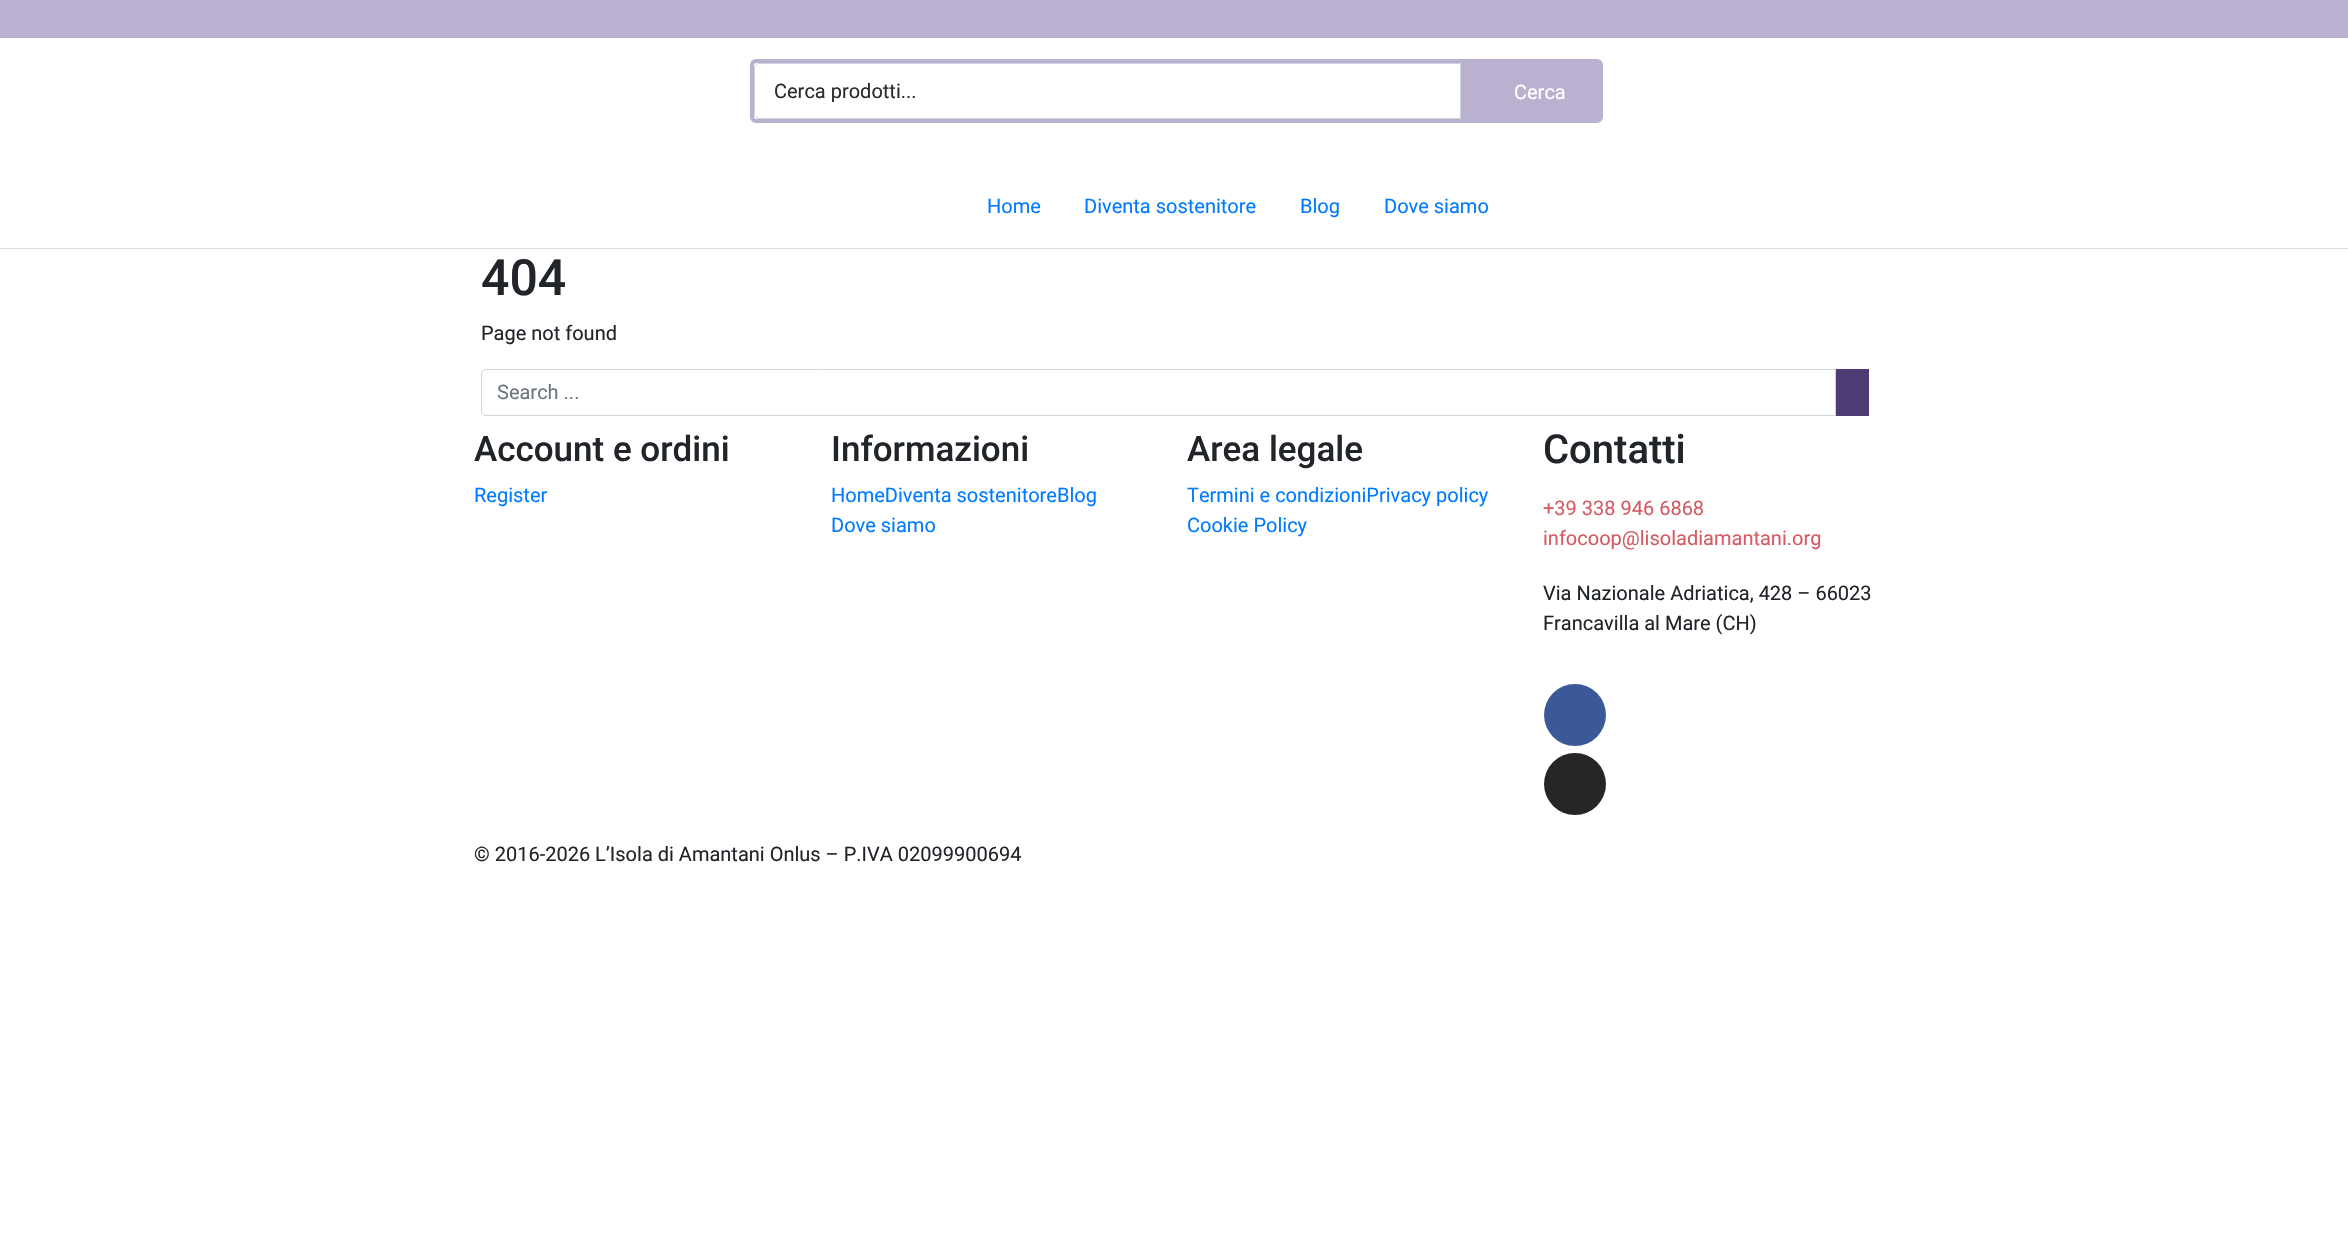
void draw(SkCanvas* canvas) {
    SkPaint paint;
    paint.setAntiAlias(true);
    auto face = [&](const char* family, int weight, float size, bool italic = false) {
        SkFontStyle style(weight, SkFontStyle::kNormal_Width,
            italic ? SkFontStyle::kItalic_Slant : SkFontStyle::kUpright_Slant);
        SkFont result(fontMgr->matchFamilyStyle(family, style), size);
        result.setSubpixel(true);
        return result;
    };
    auto write = [&](const char* s, float x, float y, const SkFont& font, SkColor color) {
        SkPaint ink(SkColor4f::FromColor(color));
        ink.setAntiAlias(true);
        canvas->drawString(s, x, y, font, ink);
    };
    auto block = [&](float x, float y, float w, float h, SkColor color) {
        SkPaint ink(SkColor4f::FromColor(color));
        ink.setAntiAlias(true);
        canvas->drawRect(SkRect::MakeXYWH(x, y, w, h), ink);
    };
    canvas->clear(SK_ColorWHITE);
    block(0, 0, 2348, 38, SkColorSetRGB(186, 177, 208));
    paint.setStyle(SkPaint::kStroke_Style);
    paint.setStrokeWidth(4);
    paint.setColor(SkColorSetRGB(186, 177, 208));
    canvas->drawRoundRect(SkRect::MakeXYWH(752, 61, 849, 60), 4, 4, paint);
    paint.setStrokeWidth(1);
    paint.setColor(SkColorSetRGB(206, 212, 218));
    canvas->drawPath(SkPathBuilder().moveTo(759, 63.5f).lineTo(1460.5f, 63.5f).lineTo(1460.5f, 118.5f).lineTo(759, 118.5f).cubicTo(756.5f, 118.5f, 754.5f, 116.5f, 754.5f, 114).lineTo(754.5f, 68).cubicTo(754.5f, 65.5f, 756.5f, 63.5f, 759, 63.5f).close().detach(), paint);
    auto kFont1 = face("Roboto", 400, 20);
    write("Cerca prodotti...", 774, 98, kFont1, SkColorSetRGB(43, 43, 43));
    block(1461, 63, 6, 56, SkColorSetRGB(186, 177, 208));
    paint.setStyle(SkPaint::kFill_Style);
    paint.setColor(SkColorSetRGB(186, 177, 208));
    canvas->drawPath(SkPathBuilder().moveTo(1467, 63).lineTo(1599, 63).lineTo(1599, 119).lineTo(1467, 119).cubicTo(1463.5f, 119, 1461, 116.5f, 1461, 113).lineTo(1461, 69).cubicTo(1461, 65.5f, 1463.5f, 63, 1467, 63).close().detach(), paint);
    write("Cerca", 1514, 99, kFont1, SK_ColorWHITE);
    block(0, 248, 2348, 1, SkColorSetRGB(221, 221, 221));
    write("Home", 987, 213, kFont1, SkColorSetRGB(0, 123, 255));
    write("Diventa sostenitore", 1084, 213, kFont1, SkColorSetRGB(0, 123, 255));
    write("Blog", 1300, 213, kFont1, SkColorSetRGB(0, 123, 255));
    write("Dove siamo", 1384, 213, kFont1, SkColorSetRGB(0, 123, 255));
    auto kFont2 = face("Roboto", 500, 50);
    write("404", 481, 295, kFont2, SkColorSetRGB(33, 37, 41));
    write("Page not found", 481, 340, kFont1, SkColorSetRGB(33, 37, 41));
    paint.setStyle(SkPaint::kStroke_Style);
    paint.setColor(SkColorSetRGB(206, 212, 218));
    canvas->drawPath(SkPathBuilder().moveTo(486, 369.5f).lineTo(1835.5f, 369.5f).lineTo(1835.5f, 415.5f).lineTo(486, 415.5f).cubicTo(483.5f, 415.5f, 481.5f, 413.5f, 481.5f, 411).lineTo(481.5f, 374).cubicTo(481.5f, 371.5f, 483.5f, 369.5f, 486, 369.5f).close().detach(), paint);
    write("Search ...", 497, 399, kFont1, SkColorSetRGB(108, 117, 125));
    block(1836, 369, 33, 47, SkColorSetRGB(79, 60, 116));
    auto kFont3 = face("Roboto", 500, 35);
    write("Account e ordini", 474, 461, kFont3, SkColorSetRGB(33, 37, 41));
    write("Register", 474, 502, kFont1, SkColorSetRGB(0, 123, 255));
    write("Informazioni", 831, 461, kFont3, SkColorSetRGB(33, 37, 41));
    write("HomeDiventa sostenitoreBlog", 831, 502, kFont1, SkColorSetRGB(0, 123, 255));
    write("Dove siamo", 831, 532, kFont1, SkColorSetRGB(0, 123, 255));
    write("Area legale", 1187, 461, kFont3, SkColorSetRGB(33, 37, 41));
    write("Termini e condizioniPrivacy policy", 1187, 502, kFont1, SkColorSetRGB(0, 123, 255));
    write("Cookie Policy", 1187, 532, kFont1, SkColorSetRGB(0, 123, 255));
    auto kFont4 = face("Roboto", 500, 40);
    write("Contatti", 1543, 463, kFont4, SkColorSetRGB(33, 37, 41));
    write("+39 338 946 6868", 1543, 515, kFont1, SkColorSetRGB(213, 90, 99));
    write("infocoop@lisoladiamantani.org", 1543, 545, kFont1, SkColorSetRGB(213, 90, 99));
    write("Via Nazionale Adriatica, 428 – 66023", 1543, 600, kFont1, SkColorSetRGB(33, 37, 41));
    write("Francavilla al Mare (CH)", 1543, 630, kFont1, SkColorSetRGB(33, 37, 41));
    paint.setStyle(SkPaint::kFill_Style);
    paint.setColor(SkColorSetRGB(59, 89, 152));
    canvas->drawCircle(1575, 715, 31, paint);
    paint.setColor(SkColorSetRGB(38, 38, 38));
    canvas->drawCircle(1575, 784, 31, paint);
    write("© 2016-2026 L’Isola di Amantani Onlus – P.IVA 02099900694", 474, 861, kFont1, SkColorSetRGB(33, 37, 41));
}
